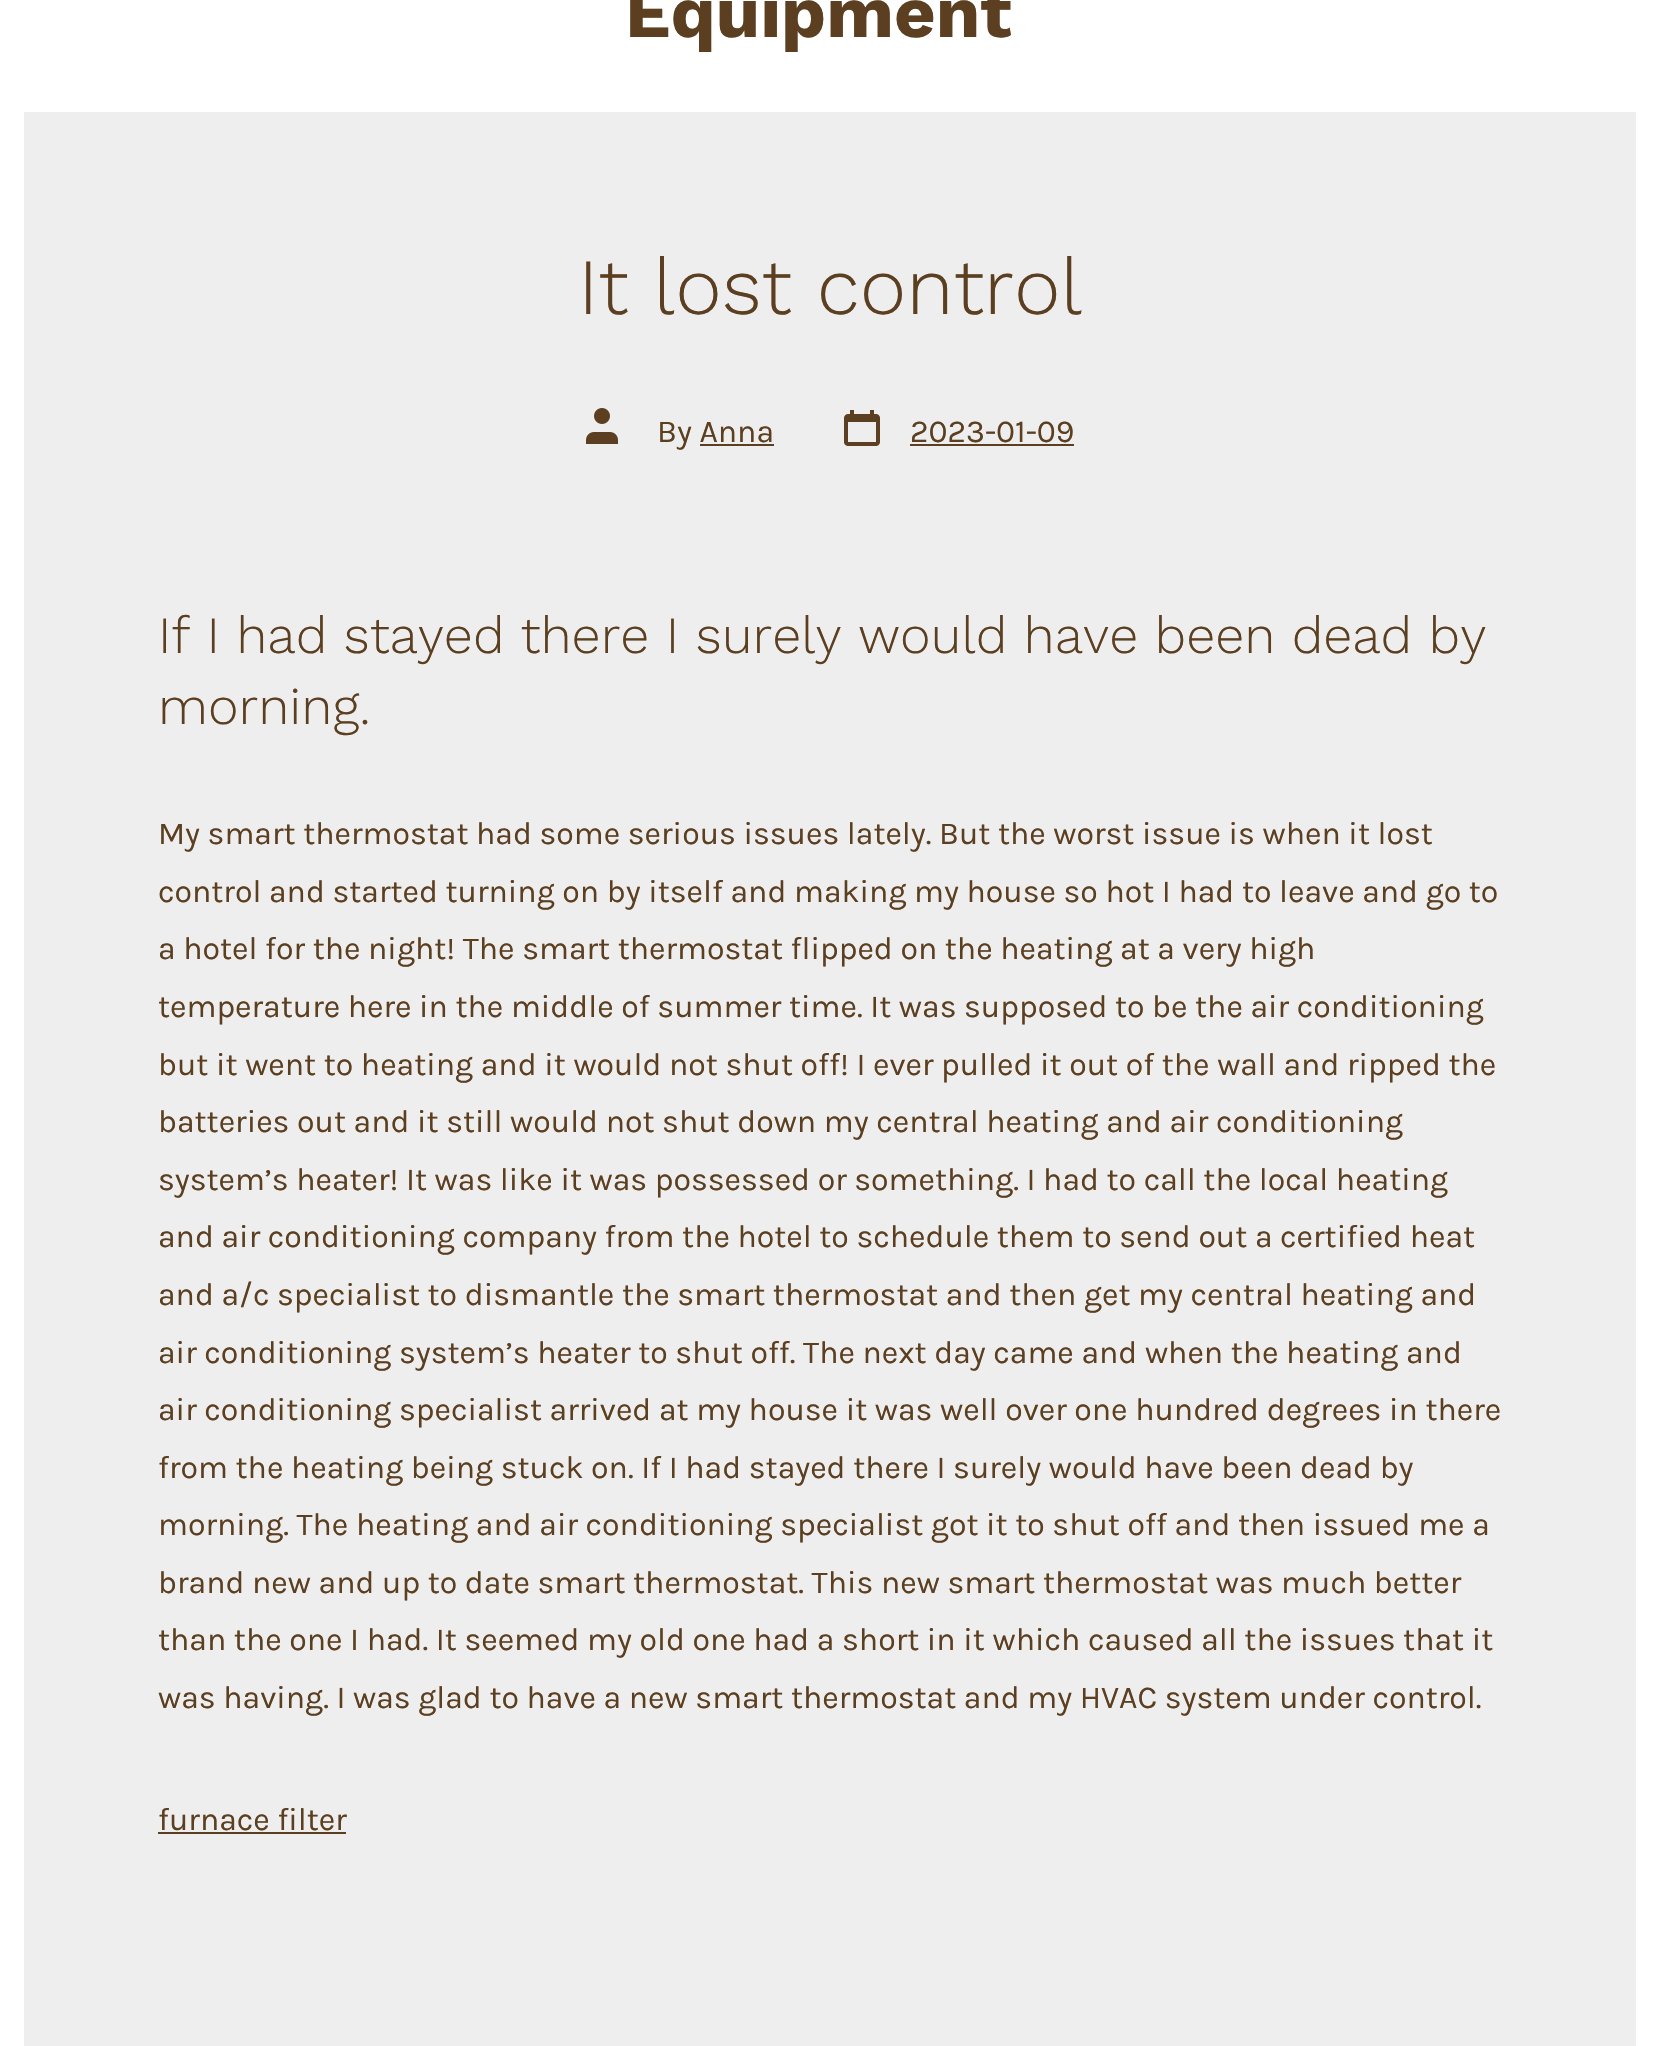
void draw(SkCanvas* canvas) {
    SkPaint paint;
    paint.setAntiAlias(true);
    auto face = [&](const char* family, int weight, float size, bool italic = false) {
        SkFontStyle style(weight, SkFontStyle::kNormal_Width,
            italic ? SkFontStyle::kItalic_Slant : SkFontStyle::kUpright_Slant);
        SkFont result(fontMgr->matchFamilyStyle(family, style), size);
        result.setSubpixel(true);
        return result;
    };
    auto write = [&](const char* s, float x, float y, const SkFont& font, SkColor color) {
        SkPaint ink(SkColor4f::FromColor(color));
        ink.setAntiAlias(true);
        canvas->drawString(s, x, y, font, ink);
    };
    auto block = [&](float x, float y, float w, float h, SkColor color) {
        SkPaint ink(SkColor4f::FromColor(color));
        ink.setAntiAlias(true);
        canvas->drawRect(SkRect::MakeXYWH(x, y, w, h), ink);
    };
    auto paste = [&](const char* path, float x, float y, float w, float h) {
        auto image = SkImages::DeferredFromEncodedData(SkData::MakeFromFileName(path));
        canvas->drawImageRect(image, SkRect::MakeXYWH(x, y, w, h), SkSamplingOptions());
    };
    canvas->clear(SkColorSetRGB(238, 238, 238));
    block(1636, 0, 23, 2046, SK_ColorWHITE);
    block(0, 0, 24, 2046, SK_ColorWHITE);
    block(24, 0, 1612, 112, SK_ColorWHITE);
    auto kFont1 = face("Work Sans", 700, 72);
    write("Equipment", 625, 37, kFont1, SkColorSetRGB(91, 63, 32));
    auto kFont2 = face("Work Sans", 300, 79.5f);
    write("It lost control", 578, 314, kFont2, SkColorSetRGB(91, 63, 32));
    paste("pic1.png", 586, 408, 32, 36);
    auto kFont3 = face("Karla", 400, 32);
    write("By Anna", 657, 442, kFont3, SkColorSetRGB(91, 63, 32));
    block(700, 444, 74, 2, SkColorSetRGB(91, 63, 32));
    paste("pic2.png", 844, 410, 36, 36);
    write("2023-01-09", 910, 442, kFont3, SkColorSetRGB(91, 63, 32));
    block(910, 444, 164, 2, SkColorSetRGB(91, 63, 32));
    auto kFont4 = face("Work Sans", 300, 52.1f);
    write("If I had stayed there I surely would have been dead by", 158, 653, kFont4, SkColorSetRGB(91, 63, 32));
    write("morning.", 158, 724, kFont4, SkColorSetRGB(91, 63, 32));
    write("My smart thermostat had some serious issues lately. But the worst issue is when it lost", 158, 844, kFont3, SkColorSetRGB(91, 63, 32));
    write("control and started turning on by itself and making my house so hot I had to leave and go to", 158, 902, kFont3, SkColorSetRGB(91, 63, 32));
    write("a hotel for the night! The smart thermostat flipped on the heating at a very high", 158, 959, kFont3, SkColorSetRGB(91, 63, 32));
    write("temperature here in the middle of summer time. It was supposed to be the air conditioning", 158, 1017, kFont3, SkColorSetRGB(91, 63, 32));
    write("but it went to heating and it would not shut off! I ever pulled it out of the wall and ripped the", 158, 1075, kFont3, SkColorSetRGB(91, 63, 32));
    write("batteries out and it still would not shut down my central heating and air conditioning", 158, 1132, kFont3, SkColorSetRGB(91, 63, 32));
    write("system’s heater! It was like it was possessed or something. I had to call the local heating", 158, 1190, kFont3, SkColorSetRGB(91, 63, 32));
    write("and air conditioning company from the hotel to schedule them to send out a certified heat", 158, 1247, kFont3, SkColorSetRGB(91, 63, 32));
    write("and a/c specialist to dismantle the smart thermostat and then get my central heating and", 158, 1305, kFont3, SkColorSetRGB(91, 63, 32));
    write("air conditioning system’s heater to shut off. The next day came and when the heating and", 158, 1363, kFont3, SkColorSetRGB(91, 63, 32));
    write("air conditioning specialist arrived at my house it was well over one hundred degrees in there", 158, 1420, kFont3, SkColorSetRGB(91, 63, 32));
    write("from the heating being stuck on. If I had stayed there I surely would have been dead by", 158, 1478, kFont3, SkColorSetRGB(91, 63, 32));
    write("morning. The heating and air conditioning specialist got it to shut off and then issued me a", 158, 1535, kFont3, SkColorSetRGB(91, 63, 32));
    write("brand new and up to date smart thermostat. This new smart thermostat was much better", 158, 1593, kFont3, SkColorSetRGB(91, 63, 32));
    write("than the one I had. It seemed my old one had a short in it which caused all the issues that it", 158, 1650, kFont3, SkColorSetRGB(91, 63, 32));
    write("was having. I was glad to have a new smart thermostat and my HVAC system under control.", 158, 1708, kFont3, SkColorSetRGB(91, 63, 32));
    write("furnace filter", 158, 1830, kFont3, SkColorSetRGB(91, 63, 32));
    block(158, 1832, 188, 2, SkColorSetRGB(91, 63, 32));
}
